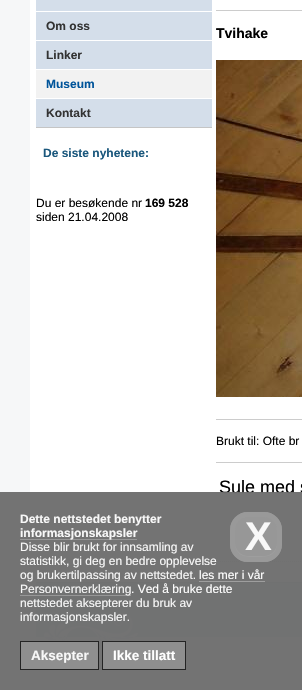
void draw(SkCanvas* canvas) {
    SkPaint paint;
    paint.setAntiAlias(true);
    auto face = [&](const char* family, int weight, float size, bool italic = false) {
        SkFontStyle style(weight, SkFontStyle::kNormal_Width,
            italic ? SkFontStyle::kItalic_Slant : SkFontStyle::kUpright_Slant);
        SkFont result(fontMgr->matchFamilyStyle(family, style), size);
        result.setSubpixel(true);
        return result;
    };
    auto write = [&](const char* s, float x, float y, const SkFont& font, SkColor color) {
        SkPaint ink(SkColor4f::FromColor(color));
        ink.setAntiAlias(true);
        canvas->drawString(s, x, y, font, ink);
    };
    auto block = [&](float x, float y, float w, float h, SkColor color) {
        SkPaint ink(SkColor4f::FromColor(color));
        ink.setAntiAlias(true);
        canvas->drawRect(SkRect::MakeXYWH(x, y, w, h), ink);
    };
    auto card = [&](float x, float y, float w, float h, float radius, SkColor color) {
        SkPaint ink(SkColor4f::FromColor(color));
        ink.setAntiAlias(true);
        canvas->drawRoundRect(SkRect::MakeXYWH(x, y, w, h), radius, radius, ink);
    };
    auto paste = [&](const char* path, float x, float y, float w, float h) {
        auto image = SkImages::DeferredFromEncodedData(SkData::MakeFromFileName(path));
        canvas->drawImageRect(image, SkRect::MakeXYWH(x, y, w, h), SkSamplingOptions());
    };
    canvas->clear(SkColorSetRGB(246, 247, 248));
    block(30, 0, 6, 684, SK_ColorWHITE);
    block(36, 0, 266, 582, SK_ColorWHITE);
    block(36, 0, 176, 11, SkColorSetRGB(212, 222, 234));
    block(36, 12, 176, 28, SkColorSetRGB(212, 222, 234));
    auto kFont1 = face("Liberation Sans", 700, 12);
    write("Om oss", 46, 30, kFont1, SkColorSetRGB(51, 51, 51));
    block(36, 41, 176, 28, SkColorSetRGB(212, 222, 234));
    write("Linker", 46, 59, kFont1, SkColorSetRGB(51, 51, 51));
    block(36, 70, 176, 28, SkColorSetRGB(242, 242, 242));
    write("Museum", 46, 88, kFont1, SkColorSetRGB(0, 84, 154));
    block(36, 99, 176, 28, SkColorSetRGB(212, 222, 234));
    write("Kontakt", 46, 117, kFont1, SkColorSetRGB(51, 51, 51));
    block(36, 127, 176, 1, SkColorSetRGB(197, 197, 197));
    write("De siste nyhetene:", 43, 157, kFont1, SkColorSetRGB(27, 88, 125));
    auto kFont2 = face("Liberation Sans", 400, 12);
    write("Du er besøkende nr", 36, 207, kFont2, SK_ColorBLACK);
    write("169 528", 145, 207, kFont1, SK_ColorBLACK);
    write("siden 21.04.2008", 36, 221, kFont2, SK_ColorBLACK);
    block(216, 10, 86, 1, SkColorSetRGB(204, 204, 204));
    auto kFont3 = face("Liberation Sans", 700, 14);
    write("Tvihake", 216, 38, kFont3, SK_ColorBLACK);
    paste("pic1.png", 216, 60, 86, 337);
    block(216, 419, 86, 1, SkColorSetRGB(204, 204, 204));
    write("Brukt til: Ofte br", 216, 445, kFont2, SK_ColorBLACK);
    block(216, 462, 86, 1, SkColorSetRGB(204, 204, 204));
    auto kFont4 = face("Liberation Sans", 400, 18);
    write("Sule med s", 219, 493, kFont4, SK_ColorBLACK);
    paint.setStyle(SkPaint::kStroke_Style);
    paint.setStrokeWidth(1);
    paint.setColor(SkColorSetRGB(204, 204, 204));
    paint.setPathEffect(SkDashPathEffect::Make({{1, 1}}, 0));
    canvas->drawPath(SkPathBuilder().moveTo(216, 561.5f).lineTo(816, 561.5f).detach(), paint);
    paint.setPathEffect(nullptr);
    block(36, 583, 266, 54, SkColorSetRGB(212, 222, 234));
    paste("pic2.png", 44, 613, 94, 24);
    block(36, 582, 266, 1, SkColorSetRGB(184, 203, 215));
    block(36, 637, 266, 47, SK_ColorWHITE);
    paste("pic3.png", 44, 637, 91, 25);
    block(0, 492, 302, 198, SkColorSetARGB(242, 107, 107, 107));
    write("Dette nettstedet benytter", 20, 523, kFont1, SkColorSetRGB(248, 248, 248));
    block(20, 539, 117, 1, SkColorSetRGB(151, 151, 151));
    write("informasjonskapsler", 20, 537, kFont1, SkColorSetRGB(248, 248, 248));
    card(230, 512, 52, 50, 18, SkColorSetARGB(242, 153, 153, 153));
    paint.setStyle(SkPaint::kFill_Style);
    paint.setColor(SkColorSetRGB(158, 158, 158));
    canvas->drawPath(SkPathBuilder().moveTo(235, 543).cubicTo(235, 557, 245, 557, 256, 557).cubicTo(267, 557, 277, 557, 277, 543).cubicTo(277, 550, 271, 556, 264, 556).lineTo(248, 556).cubicTo(241, 556, 235, 550, 235, 543).close().detach(), paint);
    paint.setStyle(SkPaint::kStroke_Style);
    paint.setStrokeWidth(5);
    paint.setColor(SkColorSetARGB(242, 153, 153, 153));
    canvas->drawRoundRect(SkRect::MakeXYWH(232.5f, 514.5f, 47, 45), 15.5f, 15.5f, paint);
    auto kFont5 = face("Liberation Sans", 700, 40);
    write("X", 245, 550, kFont5, SkColorSetRGB(248, 248, 248));
    write("Disse blir brukt for innsamling av", 20, 551, kFont2, SkColorSetRGB(248, 248, 248));
    write("statistikk, gi deg en bedre opplevelse", 20, 565, kFont2, SkColorSetRGB(248, 248, 248));
    write("og brukertilpassing av nettstedet.", 20, 579, kFont2, SkColorSetRGB(248, 248, 248));
    write("les mer i vår", 199, 579, kFont2, SK_ColorWHITE);
    block(199, 581, 66, 1, SkColorSetRGB(158, 158, 158));
    block(20, 595, 111, 1, SkColorSetARGB(242, 153, 153, 153));
    write("Personvernerklæring", 20, 593, kFont2, SkColorSetRGB(248, 248, 248));
    write(". Ved å bruke dette", 131, 593, kFont2, SK_ColorWHITE);
    write("nettstedet aksepterer du bruk av", 20, 607, kFont2, SkColorSetRGB(248, 248, 248));
    write("informasjonskapsler.", 20, 621, kFont2, SkColorSetRGB(248, 248, 248));
    paint.setStyle(SkPaint::kFill_Style);
    paint.setColor(SkColorSetRGB(143, 143, 143));
    canvas->drawRect(SkRect::MakeXYWH(20.5f, 641.5f, 78, 28), paint);
    paint.setStyle(SkPaint::kStroke_Style);
    paint.setStrokeWidth(1);
    paint.setColor(SkColorSetRGB(36, 36, 36));
    canvas->drawRect(SkRect::MakeXYWH(20.5f, 641.5f, 78, 28), paint);
    auto kFont6 = face("Liberation Sans", 700, 13.5f);
    write("Aksepter", 31, 660, kFont6, SkColorSetRGB(248, 248, 248));
    paint.setStyle(SkPaint::kFill_Style);
    paint.setColor(SkColorSetRGB(143, 143, 143));
    canvas->drawRect(SkRect::MakeXYWH(102.5f, 641.5f, 83, 28), paint);
    paint.setStyle(SkPaint::kStroke_Style);
    paint.setColor(SkColorSetRGB(36, 36, 36));
    canvas->drawRect(SkRect::MakeXYWH(102.5f, 641.5f, 83, 28), paint);
    write("Ikke tillatt", 113, 660, kFont6, SK_ColorWHITE);
}
